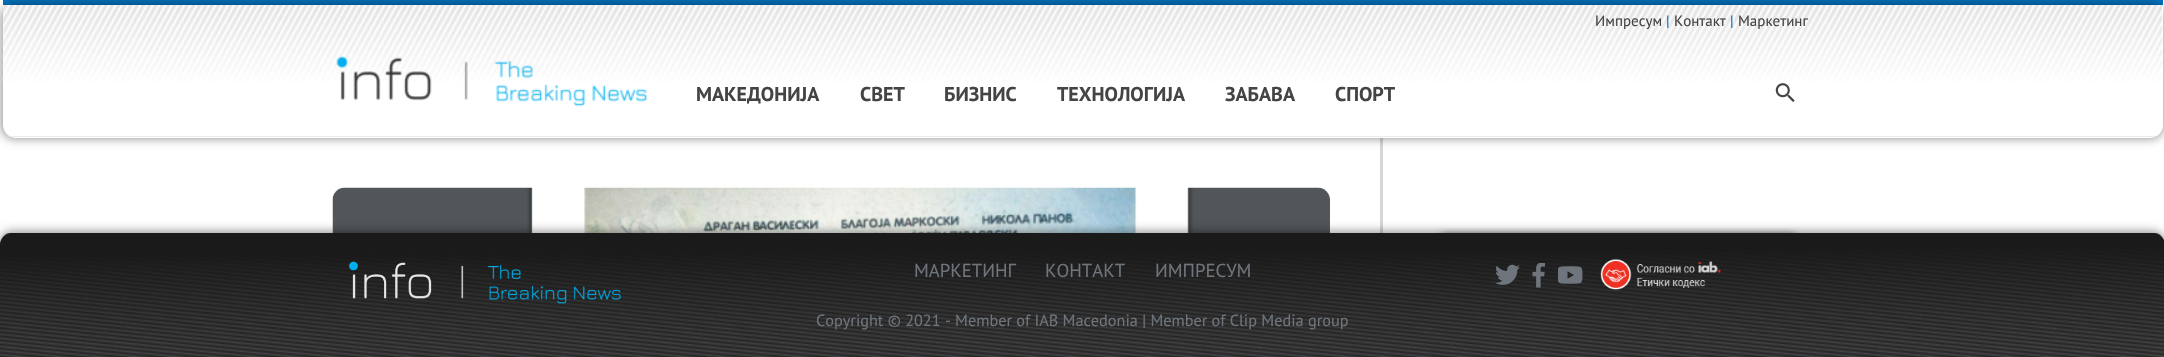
void draw(SkCanvas* canvas) {
    SkPaint paint;
    paint.setAntiAlias(true);
    auto face = [&](const char* family, int weight, float size, bool italic = false) {
        SkFontStyle style(weight, SkFontStyle::kNormal_Width,
            italic ? SkFontStyle::kItalic_Slant : SkFontStyle::kUpright_Slant);
        SkFont result(fontMgr->matchFamilyStyle(family, style), size);
        result.setSubpixel(true);
        return result;
    };
    auto write = [&](const char* s, float x, float y, const SkFont& font, SkColor color) {
        SkPaint ink(SkColor4f::FromColor(color));
        ink.setAntiAlias(true);
        canvas->drawString(s, x, y, font, ink);
    };
    auto block = [&](float x, float y, float w, float h, SkColor color) {
        SkPaint ink(SkColor4f::FromColor(color));
        ink.setAntiAlias(true);
        canvas->drawRect(SkRect::MakeXYWH(x, y, w, h), ink);
    };
    auto paste = [&](const char* path, float x, float y, float w, float h) {
        auto image = SkImages::DeferredFromEncodedData(SkData::MakeFromFileName(path));
        canvas->drawImageRect(image, SkRect::MakeXYWH(x, y, w, h), SkSamplingOptions());
    };
    canvas->clear(SK_ColorWHITE);
    block(3, 0, 2160, 5, SkColorSetRGB(0, 113, 188));
    block(1380, 138, 3, 95, SkColorSetRGB(214, 214, 214));
    paint.setColor(SkColorSetARGB(102, 0, 0, 0));
    paint.setMaskFilter(SkMaskFilter::MakeBlur(kNormal_SkBlurStyle, 5));
    canvas->drawRoundRect(SkRect::MakeXYWH(1, 4, 2163, 135), 14, 14, paint);
    paint.setMaskFilter(nullptr);
    paint.setColor(SK_ColorWHITE);
    canvas->drawPath(SkPathBuilder().moveTo(3, 5).lineTo(2163, 5).lineTo(2163, 125).cubicTo(2163, 132, 2157, 138, 2150, 138).lineTo(16, 138).cubicTo(9, 138, 3, 132, 3, 125).close().detach(), paint);
    paste("pic1.png", 2, 5, 2161, 77);
    auto kFont1 = face("PT Sans", 400, 15);
    write("Импресум", 1595, 26, kFont1, SkColorSetRGB(68, 68, 68));
    write("|", 1666, 26, kFont1, SkColorSetRGB(0, 113, 188));
    write("Контакт", 1674, 26, kFont1, SkColorSetRGB(68, 68, 68));
    write("|", 1730, 26, kFont1, SkColorSetRGB(0, 113, 188));
    write("Маркетинг", 1738, 26, kFont1, SkColorSetRGB(68, 68, 68));
    block(9, 136, 2147, 1, SkColorSetRGB(234, 234, 234));
    paste("pic2.png", 336, 56, 312, 51);
    auto kFont2 = face("PT Sans", 700, 20);
    write("МАКЕДОНИЈА", 696, 101, kFont2, SkColorSetRGB(68, 68, 68));
    write("СВЕТ", 860, 101, kFont2, SkColorSetRGB(68, 68, 68));
    write("БИЗНИС", 944, 101, kFont2, SkColorSetRGB(68, 68, 68));
    write("ТЕХНОЛОГИЈА", 1057, 101, kFont2, SkColorSetRGB(68, 68, 68));
    write("ЗАБАВА", 1225, 101, kFont2, SkColorSetRGB(68, 68, 68));
    write("СПОРТ", 1335, 101, kFont2, SkColorSetRGB(68, 68, 68));
    paste("pic3.png", 1775, 83, 20, 19);
    paste("pic4.png", 332, 187, 998, 46);
    paste("pic5.png", 1432, 228, 374, 5);
    paint.setColor(SkColorSetARGB(102, 0, 0, 0));
    paint.setMaskFilter(SkMaskFilter::MakeBlur(kNormal_SkBlurStyle, 5));
    canvas->drawRoundRect(SkRect::MakeXYWH(-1, 231, 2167, 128), 14, 14, paint);
    paint.setMaskFilter(nullptr);
    paint.setColor(SkColorSetRGB(26, 26, 26));
    canvas->drawPath(SkPathBuilder().moveTo(13, 233).lineTo(2152, 233).cubicTo(2159, 233, 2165, 239, 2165, 246).lineTo(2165, 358).lineTo(0, 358).lineTo(0, 246).cubicTo(0, 239, 6, 233, 13, 233).close().detach(), paint);
    paste("pic6.png", 0, 233, 2164, 124);
    paste("pic7.png", 349, 261, 272, 43);
    auto kFont3 = face("PT Sans", 400, 18.75f);
    write("МАРКЕТИНГ", 914, 277, kFont3, SkColorSetRGB(111, 117, 124));
    write("КОНТАКТ", 1045, 277, kFont3, SkColorSetRGB(111, 117, 124));
    write("ИМПРЕСУМ", 1155, 277, kFont3, SkColorSetRGB(111, 117, 124));
    auto kFont4 = face("PT Sans", 400, 16.25f);
    write("Copyright © 2021 - Member of IAB Macedonia | Member of Clip Media group", 816, 326, kFont4, SkColorSetRGB(111, 117, 124));
    paste("pic8.png", 1495, 264, 25, 21);
    paste("pic9.png", 1532, 263, 13, 25);
    paste("pic10.png", 1558, 266, 25, 18);
    paste("pic11.png", 1600, 259, 121, 31);
}
